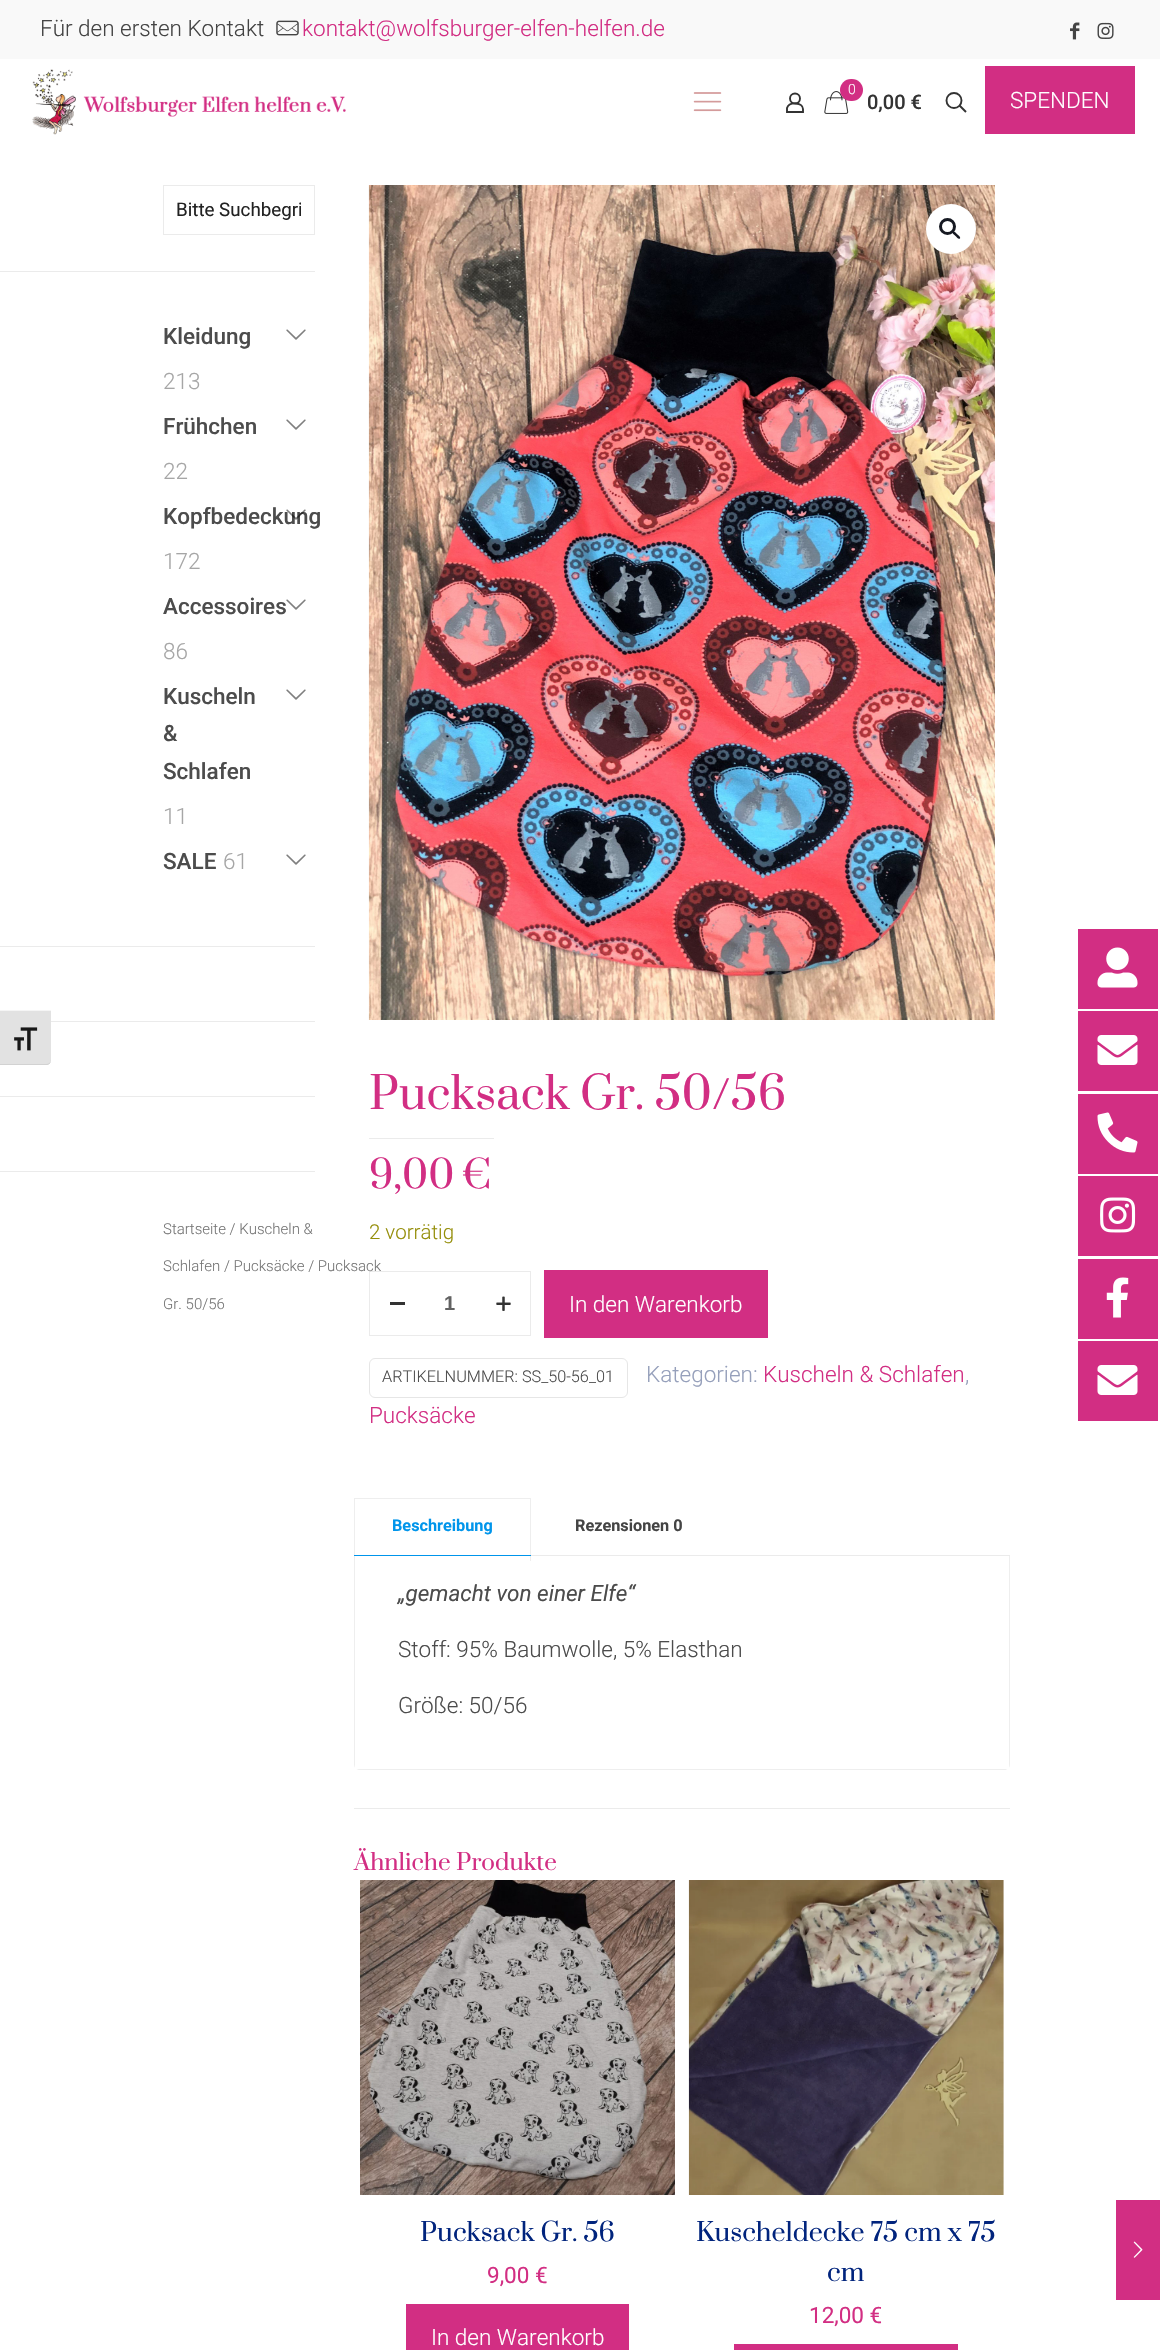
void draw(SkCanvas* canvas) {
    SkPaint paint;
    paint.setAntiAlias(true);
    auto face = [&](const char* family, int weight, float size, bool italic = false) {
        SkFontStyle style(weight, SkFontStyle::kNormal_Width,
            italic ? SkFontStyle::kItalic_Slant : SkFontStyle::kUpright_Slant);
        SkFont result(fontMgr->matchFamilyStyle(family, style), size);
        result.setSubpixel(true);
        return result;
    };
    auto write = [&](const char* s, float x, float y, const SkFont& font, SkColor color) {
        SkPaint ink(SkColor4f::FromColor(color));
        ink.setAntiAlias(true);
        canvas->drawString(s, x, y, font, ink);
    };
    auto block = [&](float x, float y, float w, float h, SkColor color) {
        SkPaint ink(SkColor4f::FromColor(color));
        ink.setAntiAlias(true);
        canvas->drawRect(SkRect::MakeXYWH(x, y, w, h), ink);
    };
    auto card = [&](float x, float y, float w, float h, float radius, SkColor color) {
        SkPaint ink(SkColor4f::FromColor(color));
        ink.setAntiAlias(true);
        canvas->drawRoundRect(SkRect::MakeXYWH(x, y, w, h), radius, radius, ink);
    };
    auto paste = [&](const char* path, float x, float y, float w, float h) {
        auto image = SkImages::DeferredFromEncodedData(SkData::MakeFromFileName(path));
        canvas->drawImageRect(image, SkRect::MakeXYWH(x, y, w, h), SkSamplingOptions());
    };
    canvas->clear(SK_ColorWHITE);
    paint.setColor(SkColorSetRGB(226, 226, 226));
    canvas->drawPath(SkPathBuilder().moveTo(0, 1010).lineTo(51, 1010).lineTo(51, 1060).cubicTo(51, 1063, 49, 1065, 46, 1065).lineTo(0, 1065).close().detach(), paint);
    block(0, 1010, 51, 1, SkColorSetRGB(245, 245, 245));
    paint.setColor(SkColorSetRGB(210, 210, 210));
    canvas->drawPath(SkPathBuilder().moveTo(46, 1065).cubicTo(49, 1065, 51, 1063, 51, 1060).cubicTo(51, 1062, 49, 1064, 46, 1064).lineTo(0, 1064).lineTo(0, 1065).close().detach(), paint);
    paste("pic1.png", 14, 1027, 24, 24);
    block(0, 0, 1160, 59, SkColorSetRGB(249, 249, 249));
    auto kFont1 = face("Roboto", 300, 22.5f);
    write("Für den ersten Kontakt", 40, 36, kFont1, SkColorSetRGB(68, 68, 68));
    paste("pic2.png", 276, 20, 23, 16);
    write("kontakt@wolfsburger-elfen-helfen.de", 302, 36, kFont1, SkColorSetRGB(210, 46, 131));
    paste("pic3.png", 1070, 22, 10, 18);
    paste("pic4.png", 1097, 22, 17, 17);
    paste("pic5.png", 32, 69, 314, 66);
    paste("pic6.png", 693, 92, 29, 20);
    paint.setStyle(SkPaint::kStroke_Style);
    paint.setStrokeWidth(1.9f);
    paint.setColor(SkColorSetRGB(51, 51, 51));
    canvas->drawCircle(795, 98.5f, 5, paint);
    canvas->drawPath(SkPathBuilder().moveTo(803, 109).lineTo(803, 112).lineTo(787, 112).lineTo(787, 108).cubicTo(789, 101.5f, 803, 102, 803, 109).close().detach(), paint);
    paste("pic7.png", 824, 91, 25, 23);
    card(840, 79, 23, 22, 11, SkColorSetRGB(210, 46, 131));
    auto kFont2 = face("Roboto", 300, 14);
    write("0", 848, 94, kFont2, SK_ColorWHITE);
    auto kFont3 = face("Roboto", 500, 20);
    write("0,00 €", 867, 109, kFont3, SkColorSetRGB(51, 51, 51));
    canvas->drawCircle(954, 100.5f, 7.5f, paint);
    canvas->drawPath(SkPathBuilder().moveTo(959.5f, 105.5f).lineTo(966, 112).detach(), paint);
    block(985, 66, 150, 68, SkColorSetRGB(210, 46, 131));
    write("SPENDEN", 1010, 108, kFont1, SK_ColorWHITE);
    paint.setStrokeWidth(1);
    paint.setColor(SkColorSetRGB(235, 235, 235));
    canvas->drawRect(SkRect::MakeXYWH(163.5f, 185.5f, 151, 49), paint);
    canvas->save();
    canvas->clipRect(SkRect::MakeXYWH(176, 199, 125, 22));
    auto kFont4 = face("Roboto", 400, 18.75f);
    write("Bitte Suchbegri", 176, 216, kFont4, SkColorSetRGB(34, 34, 34));
    canvas->restore();
    block(0, 271, 315, 1, SkColorSetRGB(235, 235, 235));
    auto kFont5 = face("Roboto", 500, 22.5f);
    write("Kleidung", 163, 344, kFont5, SkColorSetRGB(76, 76, 76));
    paste("pic8.png", 286, 329, 20, 11);
    write("213", 163, 389, kFont1, SkColorSetRGB(166, 166, 166));
    write("Frühchen", 163, 434, kFont5, SkColorSetRGB(76, 76, 76));
    paste("pic8.png", 286, 419, 20, 11);
    write("22", 163, 479, kFont1, SkColorSetRGB(166, 166, 166));
    write("Kopfbedeckung", 163, 524, kFont5, SkColorSetRGB(76, 76, 76));
    paste("pic9.png", 286, 509, 20, 11);
    write("172", 163, 569, kFont1, SkColorSetRGB(166, 166, 166));
    write("Accessoires", 163, 614, kFont5, SkColorSetRGB(76, 76, 76));
    paste("pic8.png", 286, 599, 20, 11);
    write("86", 163, 659, kFont1, SkColorSetRGB(166, 166, 166));
    write("Kuscheln", 163, 704, kFont5, SkColorSetRGB(76, 76, 76));
    write("&", 163, 741, kFont5, SkColorSetRGB(76, 76, 76));
    write("Schlafen", 163, 779, kFont5, SkColorSetRGB(76, 76, 76));
    paste("pic8.png", 286, 689, 20, 11);
    write("11", 163, 824, kFont1, SkColorSetRGB(166, 166, 166));
    write("SALE", 163, 869, kFont5, SkColorSetRGB(76, 76, 76));
    write("61", 223, 869, kFont1, SkColorSetRGB(166, 166, 166));
    paste("pic8.png", 286, 854, 20, 11);
    block(0, 946, 315, 1, SkColorSetRGB(235, 235, 235));
    block(51, 1021, 264, 1, SkColorSetRGB(235, 235, 235));
    block(0, 1096, 315, 1, SkColorSetRGB(235, 235, 235));
    block(0, 1171, 315, 1, SkColorSetRGB(235, 235, 235));
    auto kFont6 = face("Roboto", 300, 15);
    write("Startseite / Kuscheln &", 163, 1234, kFont6, SkColorSetRGB(118, 118, 118));
    canvas->drawRect(SkRect::MakeXYWH(369.5f, 1271.5f, 161, 64), paint);
    write("Schlafen / Pucksäcke / Pucksack", 163, 1271, kFont6, SkColorSetRGB(118, 118, 118));
    write("Gr. 50/56", 163, 1309, kFont6, SkColorSetRGB(118, 118, 118));
    paste("pic10.png", 368, 185, 627, 835);
    paint.setStyle(SkPaint::kFill_Style);
    paint.setColor(SK_ColorWHITE);
    canvas->drawCircle(951, 229, 25, paint);
    paint.setStyle(SkPaint::kStroke_Style);
    paint.setStrokeWidth(3);
    paint.setColor(SkColorSetRGB(22, 25, 34));
    canvas->drawCircle(947.5f, 226.5f, 7, paint);
    paint.setStyle(SkPaint::kFill_Style);
    canvas->drawPath(SkPathBuilder().moveTo(952.5f, 231.5f).cubicTo(954, 230, 956.5f, 233.5f, 957, 234).cubicTo(958, 235, 961, 237, 960, 238.5f).cubicTo(958.5f, 240, 956, 236.5f, 955.5f, 236).cubicTo(954.5f, 235, 951.5f, 233, 952.5f, 231.5f).close().detach(), paint);
    auto kFont7 = face("Prata", 400, 43.75f);
    write("Pucksack Gr. 50/56", 369, 1109, kFont7, SkColorSetRGB(210, 46, 131));
    block(369, 1138, 125, 1, SkColorSetRGB(235, 235, 235));
    auto kFont8 = face("Prata", 400, 37.5f);
    write("9,00 €", 369, 1188, kFont8, SkColorSetRGB(210, 46, 131));
    auto kFont9 = face("Roboto", 300, 20.5f);
    write("2 vorrätig", 369, 1239, kFont9, SkColorSetRGB(149, 142, 9));
    block(390, 1302, 15, 3, SkColorSetRGB(51, 51, 51));
    auto kFont10 = face("Liberation Sans", 700, 20);
    write("1", 444, 1310, kFont10, SkColorSetRGB(98, 98, 98));
    paste("pic11.png", 496, 1296, 15, 15);
    block(544, 1270, 224, 68, SkColorSetRGB(210, 46, 131));
    write("In den Warenkorb", 569, 1312, kFont1, SK_ColorWHITE);
    paint.setStyle(SkPaint::kStroke_Style);
    paint.setStrokeWidth(1);
    paint.setColor(SkColorSetRGB(230, 230, 230));
    canvas->drawRoundRect(SkRect::MakeXYWH(369.5f, 1358.5f, 258, 39), 5.5f, 5.5f, paint);
    auto kFont11 = face("Roboto", 300, 16.25f);
    write("ARTIKELNUMMER: SS_50-56_01", 382, 1382, kFont11, SkColorSetRGB(76, 76, 76));
    write("Kategorien:", 646, 1382, kFont1, SkColorSetRGB(150, 160, 187));
    write("Kuscheln & Schlafen", 763, 1382, kFont1, SkColorSetRGB(210, 46, 131));
    write(",", 965, 1382, kFont1, SkColorSetRGB(150, 160, 187));
    write("Pucksäcke", 369, 1423, kFont1, SkColorSetRGB(210, 46, 131));
    block(531, 1555, 479, 1, SkColorSetRGB(235, 235, 235));
    block(354, 1498, 177, 1, SkColorSetRGB(238, 238, 238));
    block(530, 1498, 1, 63, SkColorSetRGB(238, 238, 238));
    block(354, 1498, 1, 57, SkColorSetRGB(238, 238, 238));
    auto kFont12 = face("Roboto", 700, 16.25f);
    write("Beschreibung", 392, 1531, kFont12, SkColorSetRGB(0, 149, 235));
    block(354, 1555, 177, 1, SkColorSetRGB(0, 149, 235));
    write("Rezensionen 0", 575, 1531, kFont12, SkColorSetRGB(68, 68, 68));
    canvas->save();
    canvas->clipPath(SkPathBuilder().moveTo(360, 1485).lineTo(1004, 1485).cubicTo(1007.5f, 1485, 1010, 1487.5f, 1010, 1491).lineTo(1010, 1764).cubicTo(1010, 1767.5f, 1007.5f, 1770, 1004, 1770).lineTo(360, 1770).cubicTo(356.5f, 1770, 354, 1767.5f, 354, 1764).lineTo(354, 1491).cubicTo(354, 1487.5f, 356.5f, 1485, 360, 1485).close().detach(), true);
    block(1009, 1556, 1, 214, SkColorSetRGB(238, 238, 238));
    block(354, 1769, 656, 1, SkColorSetRGB(238, 238, 238));
    block(354, 1556, 1, 214, SkColorSetRGB(238, 238, 238));
    canvas->restore();
    auto kFont13 = face("Roboto", 400, 22.5f, true);
    write("„gemacht von einer Elfe“", 398, 1601, kFont13, SkColorSetRGB(76, 76, 76));
    write("Stoff: 95% Baumwolle, 5% Elasthan", 398, 1657, kFont1, SkColorSetRGB(76, 76, 76));
    write("Größe: 50/56", 398, 1713, kFont1, SkColorSetRGB(76, 76, 76));
    block(354, 1808, 656, 1, SkColorSetRGB(235, 235, 235));
    auto kFont14 = face("Prata", 400, 22.5f);
    write("Ähnliche Produkte", 354, 1870, kFont14, SkColorSetRGB(210, 46, 131));
    paste("pic12.png", 360, 1880, 315, 315);
    auto kFont15 = face("Prata", 400, 25);
    write("Pucksack Gr. 56", 420, 2241, kFont15, SkColorSetRGB(1, 36, 125));
    auto kFont16 = face("Roboto", 400, 22.5f);
    write("9,00 €", 487, 2283, kFont16, SkColorSetRGB(210, 46, 131));
    block(406, 2304, 223, 46, SkColorSetRGB(210, 46, 131));
    write("In den Warenkorb", 431, 2345, kFont1, SK_ColorWHITE);
    paste("pic13.png", 688, 1880, 316, 315);
    write("Kuscheldecke 75 cm x 75", 696, 2241, kFont15, SkColorSetRGB(1, 36, 125));
    write("cm", 827, 2281, kFont15, SkColorSetRGB(1, 36, 125));
    write("12,00 €", 809, 2323, kFont16, SkColorSetRGB(210, 46, 131));
    block(734, 2344, 224, 6, SkColorSetRGB(210, 46, 131));
    block(1078, 929, 80, 80, SkColorSetRGB(210, 46, 131));
    paste("pic14.png", 1097, 947, 41, 41);
    block(1078, 1011, 80, 80, SkColorSetRGB(210, 46, 131));
    paste("pic15.png", 1097, 1035, 41, 30);
    block(1078, 1094, 80, 80, SkColorSetRGB(210, 46, 131));
    paste("pic16.png", 1097, 1112, 41, 41);
    block(1078, 1176, 80, 80, SkColorSetRGB(210, 46, 131));
    paste("pic17.png", 1100, 1197, 36, 36);
    block(1078, 1259, 80, 80, SkColorSetRGB(210, 46, 131));
    paste("pic18.png", 1106, 1277, 23, 41);
    block(1078, 1341, 80, 80, SkColorSetRGB(210, 46, 131));
    paste("pic15.png", 1097, 1365, 41, 30);
    block(1116, 2200, 44, 100, SkColorSetRGB(210, 46, 131));
    paste("pic19.png", 1133, 2241, 10, 17);
}
